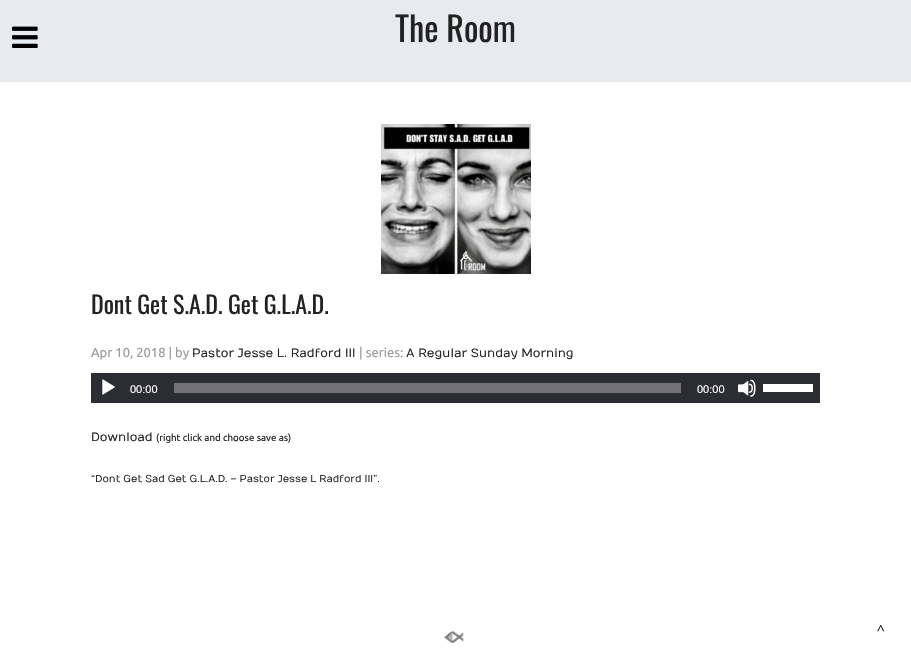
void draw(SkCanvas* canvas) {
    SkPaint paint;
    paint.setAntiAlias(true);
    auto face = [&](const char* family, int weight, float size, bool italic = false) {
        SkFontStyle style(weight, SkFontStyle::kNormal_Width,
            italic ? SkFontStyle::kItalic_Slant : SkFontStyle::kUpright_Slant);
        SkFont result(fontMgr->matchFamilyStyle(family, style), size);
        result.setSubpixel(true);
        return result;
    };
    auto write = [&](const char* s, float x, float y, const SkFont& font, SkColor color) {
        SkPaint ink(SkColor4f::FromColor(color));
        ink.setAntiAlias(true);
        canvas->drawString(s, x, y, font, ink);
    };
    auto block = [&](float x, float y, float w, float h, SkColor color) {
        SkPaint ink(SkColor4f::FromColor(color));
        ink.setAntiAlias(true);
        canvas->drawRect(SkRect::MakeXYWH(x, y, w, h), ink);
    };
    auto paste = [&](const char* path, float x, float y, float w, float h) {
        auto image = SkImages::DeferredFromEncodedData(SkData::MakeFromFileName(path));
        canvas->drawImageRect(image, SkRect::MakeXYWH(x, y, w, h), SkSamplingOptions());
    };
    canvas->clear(SK_ColorWHITE);
    block(0, 0, 911, 82, SkColorSetRGB(232, 235, 237));
    paste("pic1.png", 12, 26, 26, 22);
    auto kFont1 = face("Oswald", 400, 34);
    write("The Room", 395, 42, kFont1, SkColorSetRGB(34, 34, 34));
    paste("pic2.png", 381, 124, 150, 150);
    auto kFont2 = face("Oswald", 400, 24);
    write("Dont Get S.A.D. Get G.L.A.D.", 91, 314, kFont2, SkColorSetRGB(34, 34, 34));
    auto kFont3 = face("Ubuntu", 400, 13);
    write("Apr 10, 2018 | by", 91, 357, kFont3, SkColorSetRGB(156, 156, 156));
    auto kFont4 = face("Numans", 400, 12);
    write("Pastor Jesse L. Radford III", 192, 357, kFont4, SkColorSetRGB(34, 34, 34));
    write("| series:", 359, 357, kFont3, SkColorSetRGB(156, 156, 156));
    write("A Regular Sunday Morning", 406, 357, kFont4, SkColorSetRGB(34, 34, 34));
    block(91, 373, 729, 30, SkColorSetRGB(44, 45, 51));
    paste("pic3.png", 102, 379, 13, 16);
    auto kFont5 = face("Liberation Sans", 400, 11);
    write("00:00", 130, 393, kFont5, SK_ColorWHITE);
    block(174, 383, 507, 10, SkColorSetRGB(114, 114, 118));
    write("00:00", 697, 393, kFont5, SK_ColorWHITE);
    paste("pic4.png", 738, 379, 18, 18);
    block(763, 384, 50, 8, SK_ColorWHITE);
    write("Download", 91, 441, kFont4, SkColorSetRGB(34, 34, 34));
    auto kFont6 = face("Ubuntu", 400, 9.75f);
    write("(right click and choose save as)", 156, 441, kFont6, SkColorSetRGB(34, 34, 34));
    auto kFont7 = face("Numans", 400, 10);
    write("“Dont Get Sad Get G.L.A.D. – Pastor Jesse L Radford III”.", 91, 482, kFont7, SkColorSetRGB(34, 34, 34));
    auto kFont8 = face("Droid Sans", 400, 14);
    write("^", 877, 635, kFont8, SkColorSetRGB(34, 34, 34));
    paste("pic5.png", 444, 631, 20, 13);
}
